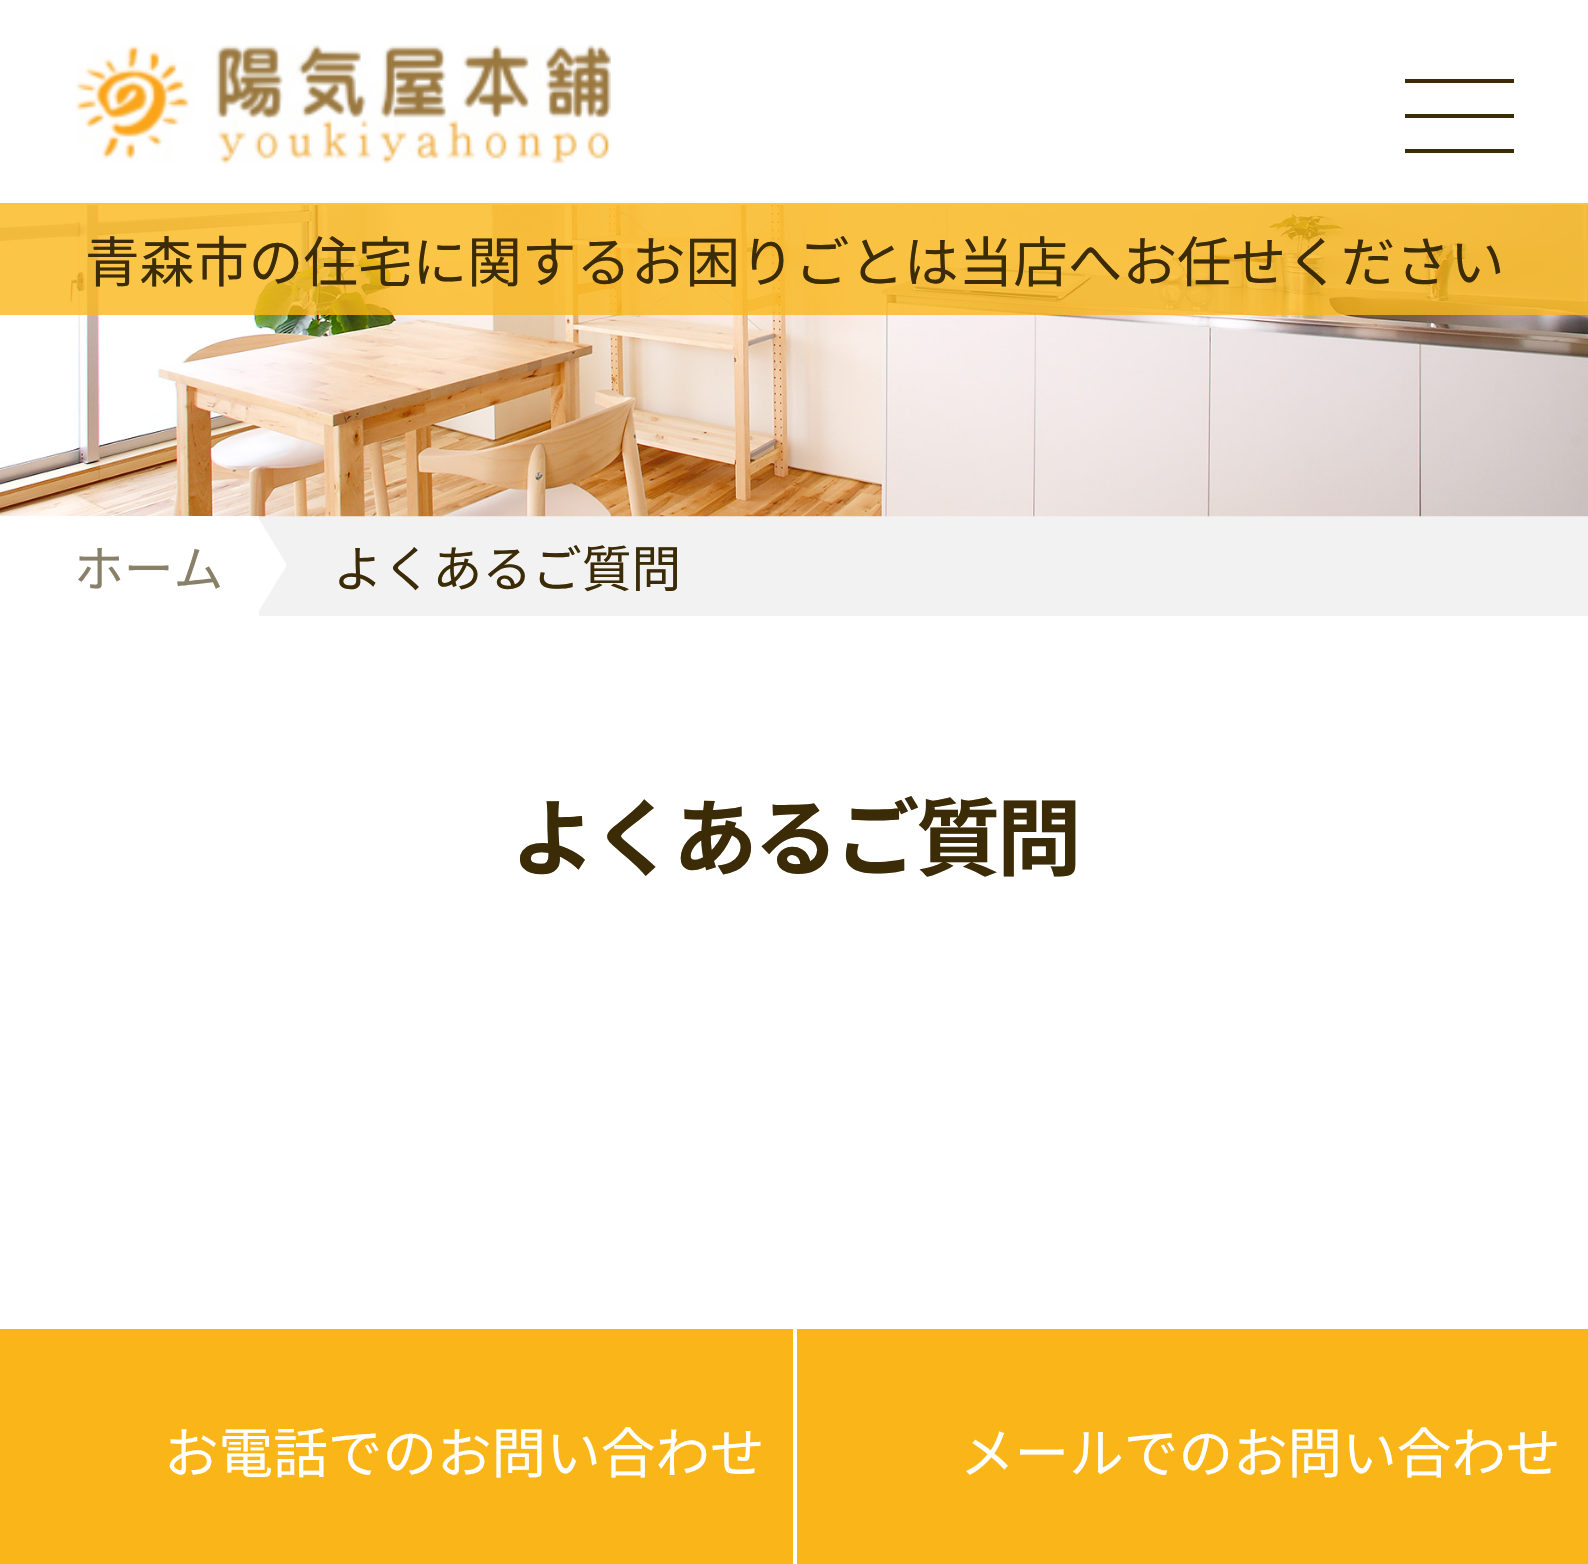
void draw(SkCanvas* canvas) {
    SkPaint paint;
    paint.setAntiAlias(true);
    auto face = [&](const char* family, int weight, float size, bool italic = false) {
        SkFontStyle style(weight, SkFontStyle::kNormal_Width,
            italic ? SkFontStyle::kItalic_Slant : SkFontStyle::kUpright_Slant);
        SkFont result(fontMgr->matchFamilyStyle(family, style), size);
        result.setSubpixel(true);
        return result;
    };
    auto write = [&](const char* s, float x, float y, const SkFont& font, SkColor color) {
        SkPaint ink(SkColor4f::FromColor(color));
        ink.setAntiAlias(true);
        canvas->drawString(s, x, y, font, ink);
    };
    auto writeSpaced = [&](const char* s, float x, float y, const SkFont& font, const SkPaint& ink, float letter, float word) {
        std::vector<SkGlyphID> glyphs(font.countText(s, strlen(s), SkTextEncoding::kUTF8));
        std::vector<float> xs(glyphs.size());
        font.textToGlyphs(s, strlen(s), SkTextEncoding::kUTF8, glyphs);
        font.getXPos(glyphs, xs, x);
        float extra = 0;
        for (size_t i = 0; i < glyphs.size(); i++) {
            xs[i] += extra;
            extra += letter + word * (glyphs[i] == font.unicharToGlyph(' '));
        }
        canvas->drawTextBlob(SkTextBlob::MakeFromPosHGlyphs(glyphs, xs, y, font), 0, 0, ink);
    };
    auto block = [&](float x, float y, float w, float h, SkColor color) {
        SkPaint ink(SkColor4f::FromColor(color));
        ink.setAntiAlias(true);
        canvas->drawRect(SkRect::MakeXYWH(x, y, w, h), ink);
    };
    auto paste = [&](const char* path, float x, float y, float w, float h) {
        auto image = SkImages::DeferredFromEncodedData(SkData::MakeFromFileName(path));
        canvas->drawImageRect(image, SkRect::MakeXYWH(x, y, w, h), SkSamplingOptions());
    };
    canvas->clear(SK_ColorWHITE);
    block(0, 203, 1588, 2, SkColorSetRGB(254, 244, 221));
    block(1405, 79, 109, 4, SkColorSetRGB(59, 43, 6));
    block(1405, 114, 109, 4, SkColorSetRGB(59, 43, 6));
    block(1405, 149, 109, 4, SkColorSetRGB(59, 43, 6));
    paste("pic1.png", 75, 44, 536, 120);
    block(259, 516, 1329, 100, SkColorSetRGB(242, 242, 242));
    paste("pic2.png", 0, 205, 1588, 312);
    block(0, 203, 1588, 112, SkColorSetARGB(204, 250, 182, 25));
    auto kFont1 = face("Noto Sans JP", 400, 54.6f);
    write("青森市の住宅に関するお困りごとは当店へお任せください", 85, 282, kFont1, SkColorSetRGB(59, 43, 6));
    block(0, 516, 259, 1, SK_ColorWHITE);
    paint.setColor(SkColorSetRGB(242, 242, 242));
    canvas->drawPath(SkPathBuilder().moveTo(261, 614).lineTo(261, 516).lineTo(290, 565).close().detach(), paint);
    paint.setColor(SK_ColorWHITE);
    canvas->drawPath(SkPathBuilder().moveTo(257, 614).lineTo(257, 516).lineTo(287, 565).close().detach(), paint);
    auto kFont2 = face("Noto Sans JP", 400, 49.75f);
    write("ホーム", 74, 587, kFont2, SkColorSetRGB(137, 128, 106));
    write("よくあるご質問", 333, 587, kFont2, SkColorSetRGB(59, 43, 6));
    paint.setColor(SkColorSetRGB(242, 242, 242));
    canvas->drawPath(SkPathBuilder().moveTo(716, 614).lineTo(716, 516).lineTo(746, 565).close().detach(), paint);
    auto kFont3 = face("Noto Sans JP", 700, 84.5f);
    paint.setColor(SkColorSetRGB(59, 43, 6));
    writeSpaced("よくあるご質問", 511, 869, kFont3, paint, -3.5f, 0);
    block(0, 1329, 793, 235, SkColorSetRGB(250, 182, 25));
    write("お電話でのお問い合わせ", 164, 1473, kFont1, SK_ColorWHITE);
    block(797, 1329, 791, 235, SkColorSetRGB(250, 182, 25));
    write("メールでのお問い合わせ", 960, 1473, kFont1, SK_ColorWHITE);
}
